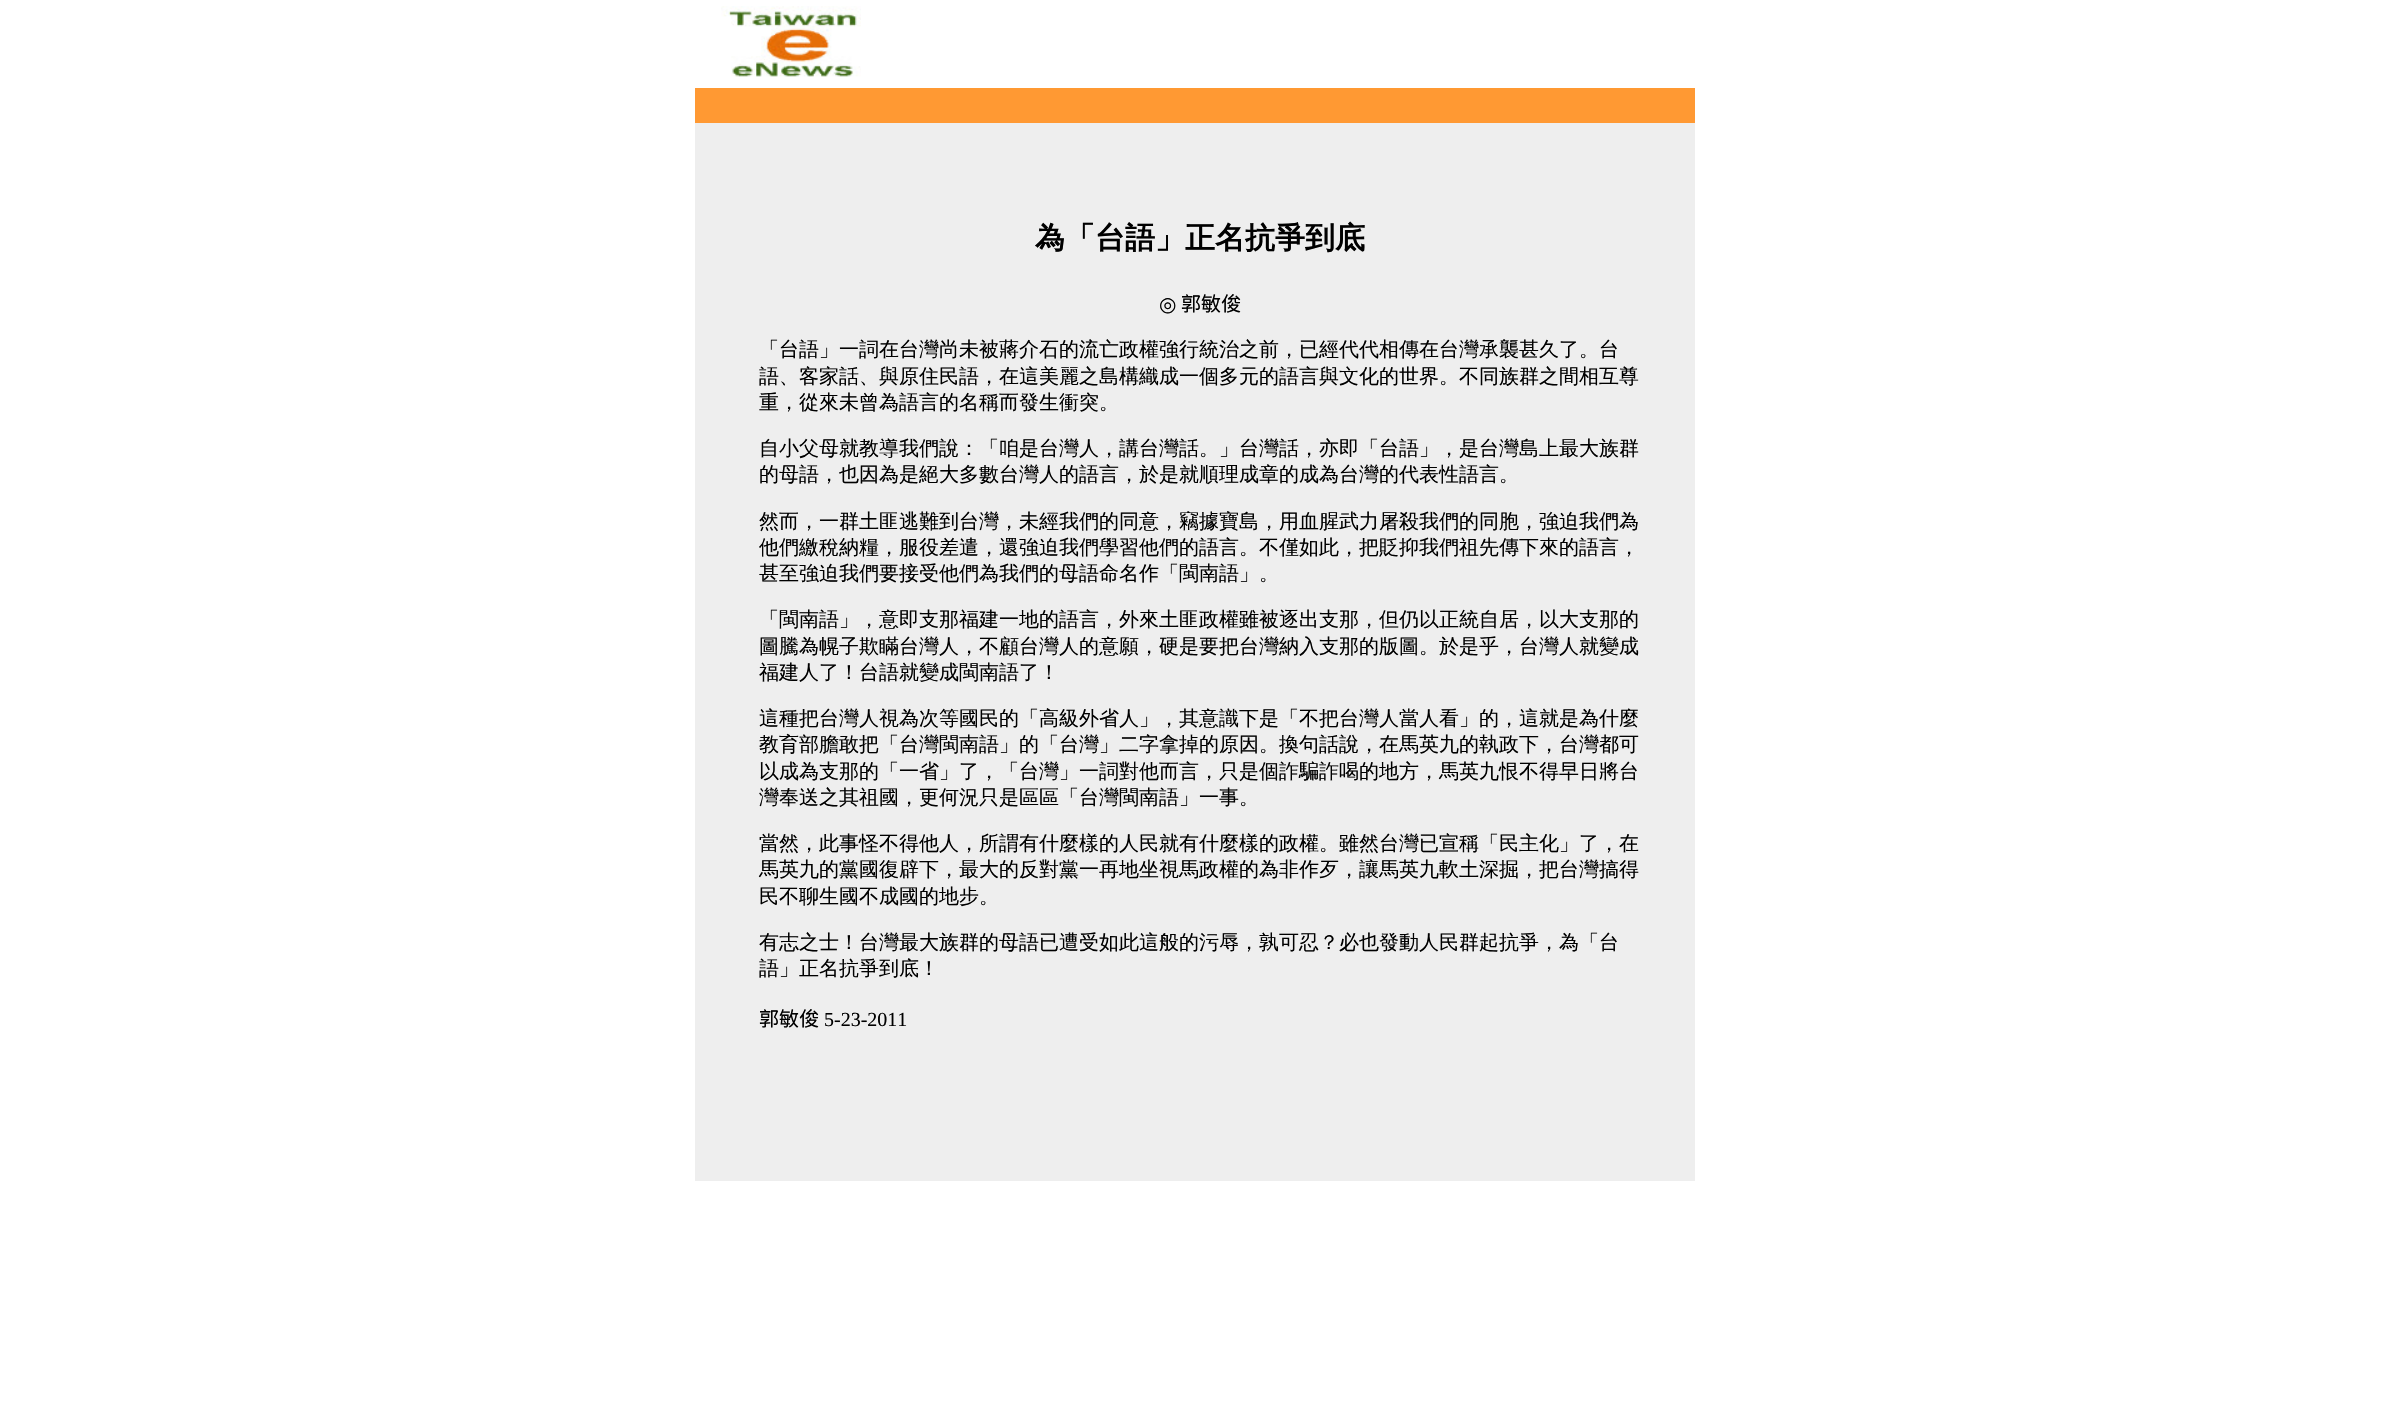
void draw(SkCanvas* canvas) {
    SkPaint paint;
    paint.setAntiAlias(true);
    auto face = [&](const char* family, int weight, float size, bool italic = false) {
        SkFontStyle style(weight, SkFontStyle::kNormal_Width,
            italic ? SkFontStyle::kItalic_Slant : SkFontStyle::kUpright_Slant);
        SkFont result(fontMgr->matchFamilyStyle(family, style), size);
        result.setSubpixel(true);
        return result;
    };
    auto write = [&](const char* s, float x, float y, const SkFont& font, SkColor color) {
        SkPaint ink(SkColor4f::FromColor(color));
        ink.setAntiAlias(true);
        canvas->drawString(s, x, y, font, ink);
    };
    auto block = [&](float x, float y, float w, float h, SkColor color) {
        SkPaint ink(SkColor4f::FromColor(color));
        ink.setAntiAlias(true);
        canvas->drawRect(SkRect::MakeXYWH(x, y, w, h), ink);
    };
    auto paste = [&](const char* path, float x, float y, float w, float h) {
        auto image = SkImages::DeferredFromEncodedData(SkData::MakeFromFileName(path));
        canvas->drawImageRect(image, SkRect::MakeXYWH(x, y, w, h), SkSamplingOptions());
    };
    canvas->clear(SK_ColorWHITE);
    paste("pic1.png", 721, 6, 140, 71);
    block(695, 88, 1000, 35, SkColorSetRGB(255, 153, 51));
    block(695, 123, 1000, 1058, SkColorSetRGB(238, 238, 238));
    auto kFont1 = face("WenQuanYi Zen Hei", 700, 30);
    write("為「台語」正名抗爭到底", 1035, 248, kFont1, SK_ColorBLACK);
    auto kFont2 = face("DejaVu Sans", 400, 20);
    write("◎", 1159, 311, kFont2, SK_ColorBLACK);
    auto kFont3 = face("Noto Sans CJK TC", 400, 20);
    write("郭敏俊", 1181, 311, kFont3, SK_ColorBLACK);
    auto kFont4 = face("WenQuanYi Zen Hei", 500, 20);
    write("「台語」一詞在台灣尚未被蔣介石的流亡政權強行統治之前，已經代代相傳在台灣承襲甚久了。台", 759, 356, kFont4, SK_ColorBLACK);
    write("語、客家話、與原住民語，在這美麗之島構織成一個多元的語言與文化的世界。不同族群之間相互尊", 759, 383, kFont4, SK_ColorBLACK);
    write("重，從來未曾為語言的名稱而發生衝突。", 759, 409, kFont4, SK_ColorBLACK);
    write("自小父母就教導我們說：「咱是台灣人，講台灣話。」台灣話，亦即「台語」，是台灣島上最大族群", 759, 455, kFont4, SK_ColorBLACK);
    write("的母語，也因為是絕大多數台灣人的語言，於是就順理成章的成為台灣的代表性語言。", 759, 481, kFont4, SK_ColorBLACK);
    write("然而，一群土匪逃難到台灣，未經我們的同意，竊據寶島，用血腥武力屠殺我們的同胞，強迫我們為", 759, 528, kFont4, SK_ColorBLACK);
    write("他們繳稅納糧，服役差遣，還強迫我們學習他們的語言。不僅如此，把貶抑我們祖先傳下來的語言，", 759, 554, kFont4, SK_ColorBLACK);
    write("甚至強迫我們要接受他們為我們的母語命名作「閩南語」。", 759, 580, kFont4, SK_ColorBLACK);
    write("「閩南語」，意即支那福建一地的語言，外來土匪政權雖被逐出支那，但仍以正統自居，以大支那的", 759, 626, kFont4, SK_ColorBLACK);
    write("圖騰為幌子欺瞞台灣人，不顧台灣人的意願，硬是要把台灣納入支那的版圖。於是乎，台灣人就變成", 759, 653, kFont4, SK_ColorBLACK);
    write("福建人了！台語就變成閩南語了！", 759, 679, kFont4, SK_ColorBLACK);
    write("這種把台灣人視為次等國民的「高級外省人」，其意識下是「不把台灣人當人看」的，這就是為什麼", 759, 725, kFont4, SK_ColorBLACK);
    write("教育部膽敢把「台灣閩南語」的「台灣」二字拿掉的原因。換句話說，在馬英九的執政下，台灣都可", 759, 751, kFont4, SK_ColorBLACK);
    write("以成為支那的「一省」了，「台灣」一詞對他而言，只是個詐騙詐喝的地方，馬英九恨不得早日將台", 759, 778, kFont4, SK_ColorBLACK);
    write("灣奉送之其祖國，更何況只是區區「台灣閩南語」一事。", 759, 804, kFont4, SK_ColorBLACK);
    write("當然，此事怪不得他人，所謂有什麼樣的人民就有什麼樣的政權。雖然台灣已宣稱「民主化」了，在", 759, 850, kFont4, SK_ColorBLACK);
    write("馬英九的黨國復辟下，最大的反對黨一再地坐視馬政權的為非作歹，讓馬英九軟土深掘，把台灣搞得", 759, 876, kFont4, SK_ColorBLACK);
    write("民不聊生國不成國的地步。", 759, 903, kFont4, SK_ColorBLACK);
    write("有志之士！台灣最大族群的母語已遭受如此這般的污辱，孰可忍？必也發動人民群起抗爭，為「台", 759, 949, kFont4, SK_ColorBLACK);
    write("語」正名抗爭到底！", 759, 975, kFont4, SK_ColorBLACK);
    write("郭敏俊", 759, 1026, kFont3, SK_ColorBLACK);
    auto kFont5 = face("Liberation Serif", 400, 20);
    write("5-23-2011", 824, 1026, kFont5, SK_ColorBLACK);
}
